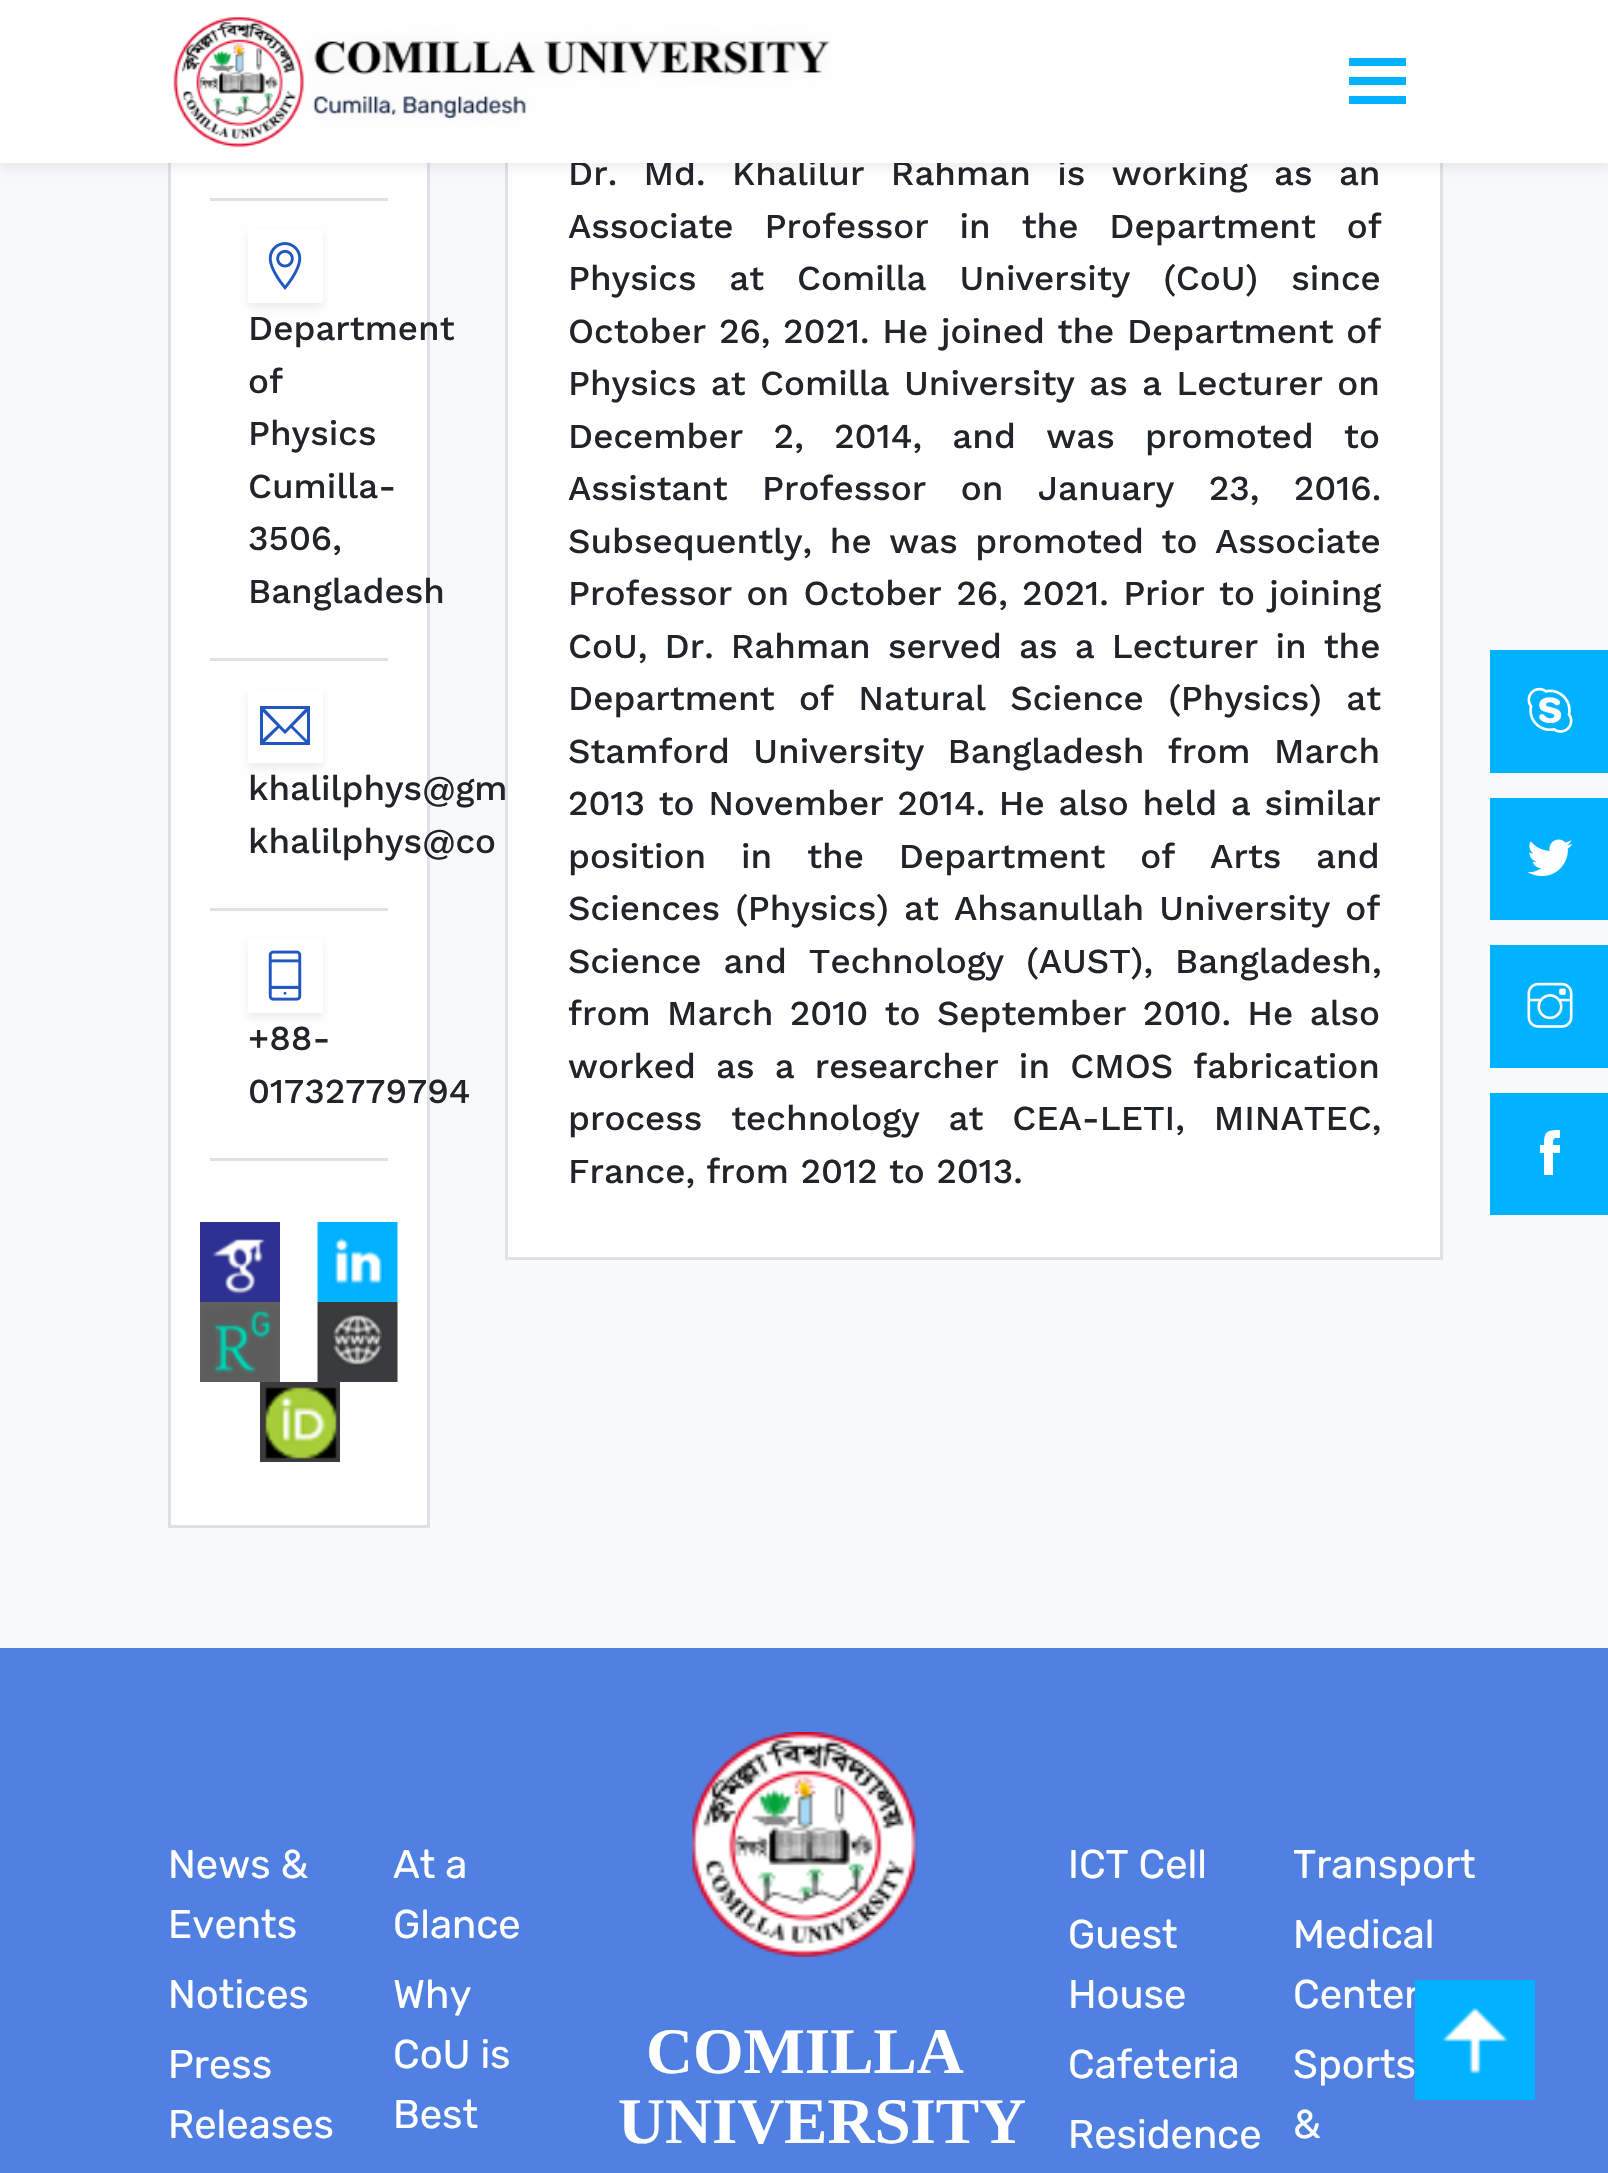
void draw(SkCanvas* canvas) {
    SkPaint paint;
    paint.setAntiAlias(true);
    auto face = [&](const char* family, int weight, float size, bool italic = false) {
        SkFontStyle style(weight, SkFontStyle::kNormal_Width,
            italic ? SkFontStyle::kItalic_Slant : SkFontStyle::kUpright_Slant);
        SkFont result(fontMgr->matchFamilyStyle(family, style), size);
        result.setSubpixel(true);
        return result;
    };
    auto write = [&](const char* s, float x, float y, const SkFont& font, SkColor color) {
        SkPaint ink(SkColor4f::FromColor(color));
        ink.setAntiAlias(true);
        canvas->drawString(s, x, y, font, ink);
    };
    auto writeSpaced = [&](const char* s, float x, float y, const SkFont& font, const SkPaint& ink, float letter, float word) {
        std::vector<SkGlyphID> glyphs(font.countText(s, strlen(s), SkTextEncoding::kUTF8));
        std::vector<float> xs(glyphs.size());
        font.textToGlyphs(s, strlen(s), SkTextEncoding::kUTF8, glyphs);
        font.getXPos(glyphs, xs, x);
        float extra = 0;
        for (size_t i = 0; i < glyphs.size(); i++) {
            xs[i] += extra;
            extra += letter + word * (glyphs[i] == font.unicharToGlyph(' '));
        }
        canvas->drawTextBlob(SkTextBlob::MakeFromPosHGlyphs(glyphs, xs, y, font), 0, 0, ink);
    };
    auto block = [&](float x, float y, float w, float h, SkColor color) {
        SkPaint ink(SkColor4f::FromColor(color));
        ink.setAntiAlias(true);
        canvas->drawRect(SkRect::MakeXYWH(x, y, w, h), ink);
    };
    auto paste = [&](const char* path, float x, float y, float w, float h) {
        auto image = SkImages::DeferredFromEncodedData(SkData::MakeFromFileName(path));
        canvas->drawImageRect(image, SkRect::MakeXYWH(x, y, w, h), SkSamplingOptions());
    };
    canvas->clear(SkColorSetRGB(248, 249, 250));
    block(171, 163, 256, 1362, SK_ColorWHITE);
    paint.setStyle(SkPaint::kStroke_Style);
    paint.setStrokeWidth(3);
    paint.setColor(SkColorSetRGB(222, 226, 230));
    canvas->drawRect(SkRect::MakeXYWH(169.5f, -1.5f, 259, 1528), paint);
    block(508, 163, 932, 1094, SK_ColorWHITE);
    canvas->drawRect(SkRect::MakeXYWH(506.5f, 86.5f, 935, 1172), paint);
    paint.setStyle(SkPaint::kFill_Style);
    paint.setColor(SkColorSetARGB(18, 0, 0, 0));
    paint.setMaskFilter(SkMaskFilter::MakeBlur(kNormal_SkBlurStyle, 5));
    canvas->drawRect(SkRect::MakeXYWH(0, 5, 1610, 163), paint);
    paint.setMaskFilter(nullptr);
    auto kFont1 = face("Work Sans", 500, 35);
    paint.setColor(SkColorSetRGB(33, 37, 41));
    writeSpaced("Dr. Md. Khalilur Rahman is working as an", 568, 185, kFont1, paint, 0, 15);
    block(0, 0, 1608, 163, SK_ColorWHITE);
    paste("pic1.png", 173, 17, 658, 131);
    paint.setColor(SkColorSetRGB(0, 178, 255));
    canvas->drawPath(SkPathBuilder().moveTo(1406, 58).lineTo(1406, 66).lineTo(1349, 66).lineTo(1349, 58).close().moveTo(1349, 85).lineTo(1406, 85).lineTo(1406, 77).lineTo(1349, 77).close().moveTo(1349, 104).lineTo(1406, 104).lineTo(1406, 96).lineTo(1349, 96).close().detach(), paint);
    block(210, 198, 178, 3, SkColorSetRGB(222, 226, 230));
    block(210, 658, 178, 3, SkColorSetRGB(222, 226, 230));
    paint.setColor(SkColorSetARGB(18, 0, 0, 0));
    paint.setMaskFilter(SkMaskFilter::MakeBlur(kNormal_SkBlurStyle, 4));
    canvas->drawRect(SkRect::MakeXYWH(248, 233, 75, 75), paint);
    paint.setMaskFilter(nullptr);
    block(248, 229, 75, 74, SK_ColorWHITE);
    paste("pic2.png", 268, 242, 34, 48);
    write("Department", 248, 340, kFont1, SkColorSetRGB(33, 37, 41));
    write("of", 248, 393, kFont1, SkColorSetRGB(33, 37, 41));
    write("Physics", 248, 445, kFont1, SkColorSetRGB(33, 37, 41));
    write("Cumilla-", 248, 498, kFont1, SkColorSetRGB(33, 37, 41));
    write("3506,", 248, 550, kFont1, SkColorSetRGB(33, 37, 41));
    write("Bangladesh", 248, 603, kFont1, SkColorSetRGB(33, 37, 41));
    block(210, 908, 178, 3, SkColorSetRGB(222, 226, 230));
    paint.setMaskFilter(SkMaskFilter::MakeBlur(kNormal_SkBlurStyle, 4));
    canvas->drawRect(SkRect::MakeXYWH(248, 693, 75, 75), paint);
    paint.setMaskFilter(nullptr);
    block(248, 689, 75, 74, SK_ColorWHITE);
    paint.setColor(SkColorSetRGB(34, 87, 191));
    canvas->drawPath(SkPathBuilder().moveTo(260, 706).lineTo(260, 745).lineTo(310, 745).lineTo(310, 706).close().moveTo(285, 730).lineTo(265, 709).lineTo(305, 709).close().moveTo(277, 726).lineTo(263, 739).lineTo(263, 712).close().moveTo(279, 728).lineTo(285, 734).lineTo(291, 728).lineTo(305, 742).lineTo(265, 742).close().moveTo(293, 726).lineTo(307, 712).lineTo(307, 740).close().detach(), paint);
    write("khalilphys@gm", 248, 800, kFont1, SkColorSetRGB(33, 37, 41));
    write("khalilphys@co", 248, 853, kFont1, SkColorSetRGB(33, 37, 41));
    block(210, 1158, 178, 3, SkColorSetRGB(222, 226, 230));
    paint.setColor(SkColorSetARGB(18, 0, 0, 0));
    paint.setMaskFilter(SkMaskFilter::MakeBlur(kNormal_SkBlurStyle, 4));
    canvas->drawRect(SkRect::MakeXYWH(248, 943, 75, 75), paint);
    paint.setMaskFilter(nullptr);
    block(248, 939, 75, 74, SK_ColorWHITE);
    paste("pic3.png", 268, 950, 34, 51);
    write("+88-", 248, 1050, kFont1, SkColorSetRGB(33, 37, 41));
    write("01732779794", 248, 1103, kFont1, SkColorSetRGB(33, 37, 41));
    paste("pic4.png", 200, 1222, 80, 80);
    paste("pic5.png", 317, 1222, 81, 80);
    paste("pic6.png", 200, 1302, 80, 80);
    paste("pic7.png", 317, 1302, 81, 80);
    paste("pic8.png", 260, 1382, 80, 80);
    paint.setColor(SkColorSetRGB(33, 37, 41));
    writeSpaced("Associate Professor in the Department of", 568, 238, kFont1, paint, 0, 19.5f);
    writeSpaced("Physics at Comilla University (CoU) since", 568, 290, kFont1, paint, 0, 21.5f);
    writeSpaced("October 26, 2021. He joined the Department of", 568, 343, kFont1, paint, 0, 1.25f);
    writeSpaced("Physics at Comilla University as a Lecturer on", 568, 395, kFont1, paint, 0, 3);
    writeSpaced("December 2, 2014, and was promoted to", 568, 448, kFont1, paint, 0, 19);
    writeSpaced("Assistant Professor on January 23, 2016.", 568, 500, kFont1, paint, 0, 23);
    writeSpaced("Subsequently, he was promoted to Associate", 568, 553, kFont1, paint, 0, 6.25f);
    writeSpaced("Professor on October 26, 2021. Prior to joining", 568, 605, kFont1, paint, 0, 3);
    writeSpaced("CoU, Dr. Rahman served as a Lecturer in the", 568, 658, kFont1, paint, 0, 5.75f);
    writeSpaced("Department of Natural Science (Physics) at", 568, 710, kFont1, paint, 0, 13);
    writeSpaced("Stamford University Bangladesh from March", 568, 763, kFont1, paint, 0, 12);
    writeSpaced("2013 to November 2014. He also held a similar", 568, 815, kFont1, paint, 0, 2.25f);
    writeSpaced("position in the Department of Arts and", 568, 868, kFont1, paint, 0, 23.5f);
    writeSpaced("Sciences (Physics) at Ahsanullah University of", 568, 920, kFont1, paint, 0, 3.75f);
    writeSpaced("Science and Technology (AUST), Bangladesh,", 568, 973, kFont1, paint, 0, 10.5f);
    writeSpaced("from March 2010 to September 2010. He also", 568, 1025, kFont1, paint, 0, 5);
    writeSpaced("worked as a researcher in CMOS fabrication", 568, 1078, kFont1, paint, 0, 8.75f);
    writeSpaced("process technology at CEA-LETI, MINATEC,", 568, 1130, kFont1, paint, 0, 17.5f);
    write("France, from 2012 to 2013.", 568, 1183, kFont1, SkColorSetRGB(33, 37, 41));
    block(1490, 650, 118, 123, SkColorSetRGB(0, 178, 255));
    paste("pic9.png", 1527, 687, 46, 46);
    block(1490, 798, 118, 122, SkColorSetRGB(0, 178, 255));
    paste("pic10.png", 1527, 839, 46, 38);
    block(1490, 945, 118, 123, SkColorSetRGB(0, 178, 255));
    paste("pic11.png", 1527, 982, 46, 46);
    block(1490, 1093, 118, 122, SkColorSetRGB(0, 178, 255));
    paint.setColor(SK_ColorWHITE);
    canvas->drawPath(SkPathBuilder().moveTo(1560, 1145).lineTo(1560, 1153).lineTo(1553, 1153).lineTo(1553, 1175).lineTo(1544, 1175).lineTo(1544, 1153).lineTo(1540, 1153).lineTo(1540, 1145).lineTo(1544, 1145).cubicTo(1544, 1131, 1547, 1130, 1560, 1130).lineTo(1560, 1138).cubicTo(1553, 1138, 1553, 1138, 1553, 1145).close().detach(), paint);
    block(0, 1648, 1608, 525, SkColorSetRGB(80, 129, 226));
    auto kFont2 = face("Rubik", 400, 40);
    write("News &", 168, 1878, kFont2, SK_ColorWHITE);
    write("Events", 168, 1938, kFont2, SK_ColorWHITE);
    write("Notices", 168, 2008, kFont2, SK_ColorWHITE);
    write("Press", 168, 2078, kFont2, SK_ColorWHITE);
    write("Releases", 168, 2138, kFont2, SK_ColorWHITE);
    write("At a", 393, 1878, kFont2, SK_ColorWHITE);
    write("Glance", 393, 1938, kFont2, SK_ColorWHITE);
    write("Why", 393, 2008, kFont2, SK_ColorWHITE);
    write("CoU is", 393, 2068, kFont2, SK_ColorWHITE);
    write("Best", 393, 2128, kFont2, SK_ColorWHITE);
    paste("pic12.png", 692, 1732, 226, 225);
    auto kFont3 = face("Liberation Serif", 700, 65);
    write("COMILLA", 646, 2073, kFont3, SK_ColorWHITE);
    write("UNIVERSITY", 618, 2143, kFont3, SK_ColorWHITE);
    write("ICT Cell", 1068, 1878, kFont2, SK_ColorWHITE);
    write("Guest", 1068, 1948, kFont2, SK_ColorWHITE);
    write("House", 1068, 2008, kFont2, SK_ColorWHITE);
    write("Cafeteria", 1068, 2078, kFont2, SK_ColorWHITE);
    write("Residence", 1068, 2148, kFont2, SK_ColorWHITE);
    write("Transport", 1293, 1878, kFont2, SK_ColorWHITE);
    write("Medical", 1293, 1948, kFont2, SK_ColorWHITE);
    write("Center", 1293, 2008, kFont2, SK_ColorWHITE);
    write("Sports", 1293, 2078, kFont2, SK_ColorWHITE);
    write("&", 1293, 2138, kFont2, SK_ColorWHITE);
    block(1415, 1980, 120, 120, SkColorSetRGB(0, 178, 255));
    paste("pic13.png", 1442, 2006, 66, 68);
}
